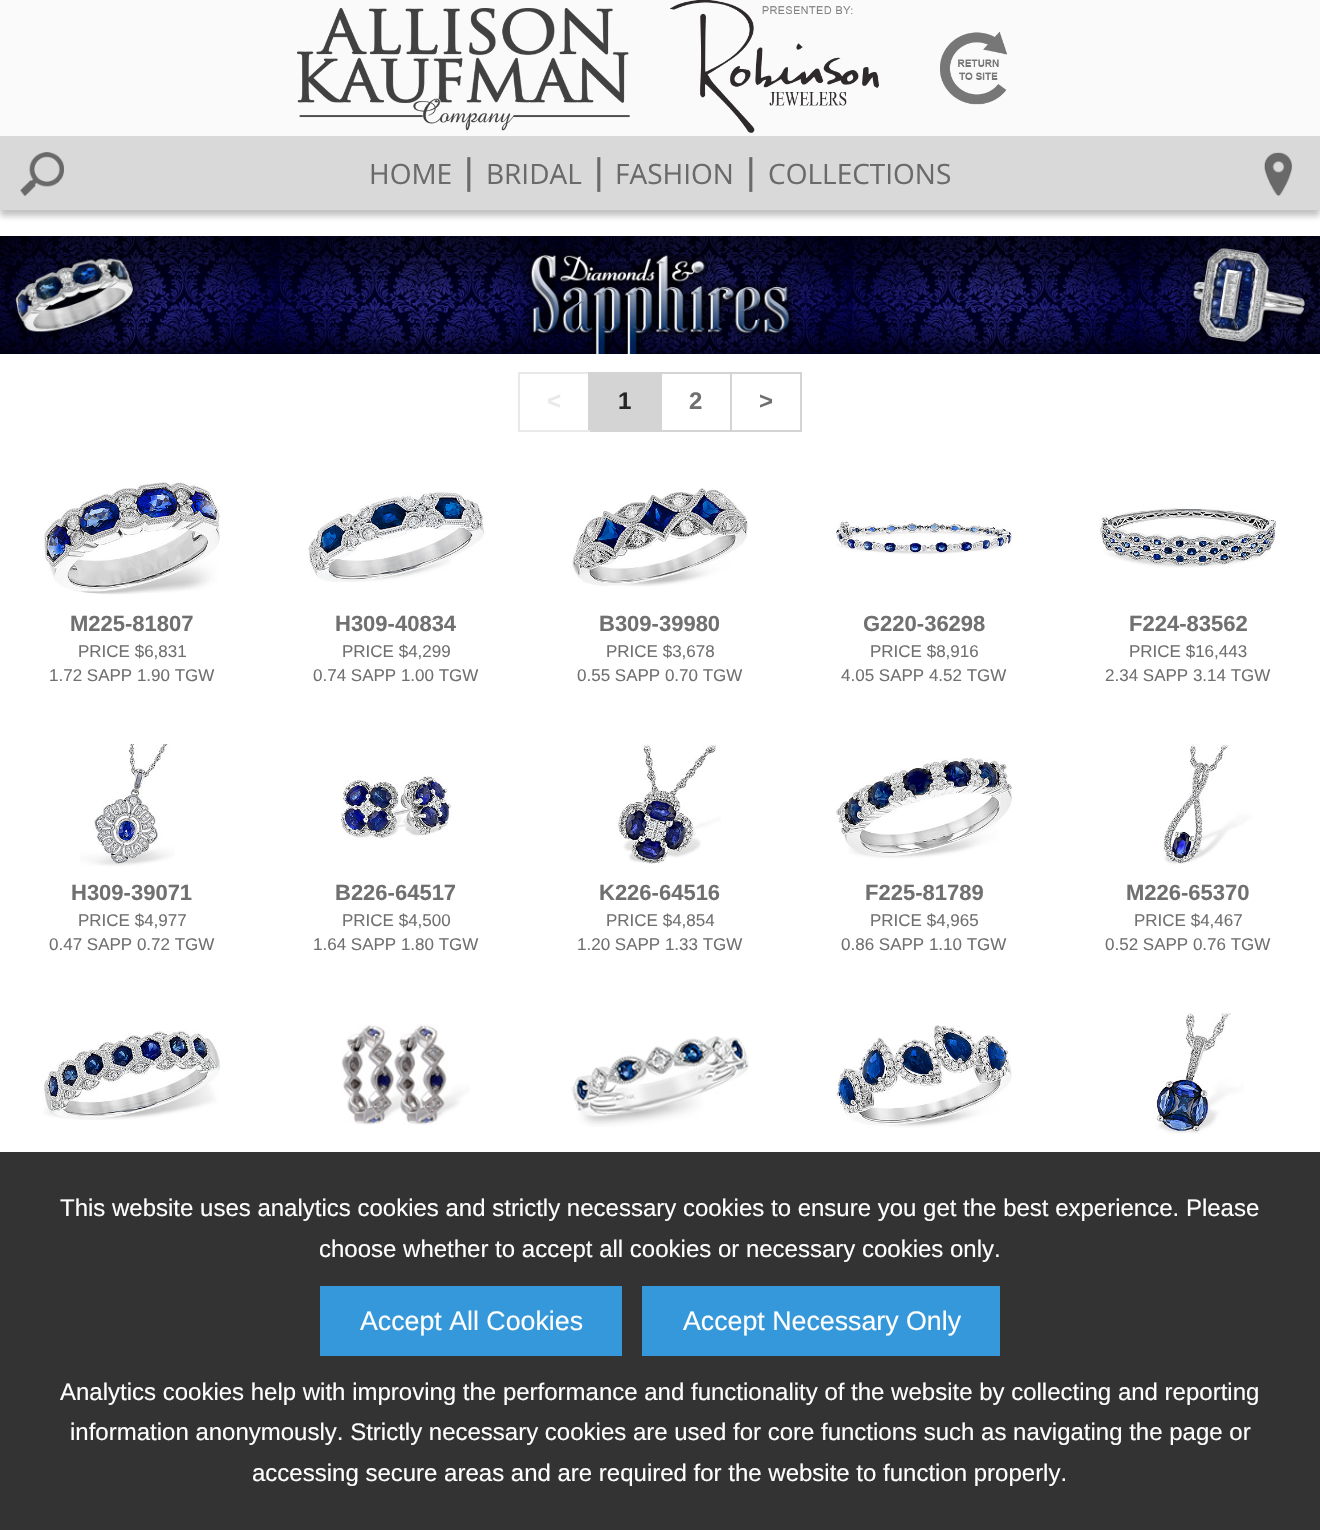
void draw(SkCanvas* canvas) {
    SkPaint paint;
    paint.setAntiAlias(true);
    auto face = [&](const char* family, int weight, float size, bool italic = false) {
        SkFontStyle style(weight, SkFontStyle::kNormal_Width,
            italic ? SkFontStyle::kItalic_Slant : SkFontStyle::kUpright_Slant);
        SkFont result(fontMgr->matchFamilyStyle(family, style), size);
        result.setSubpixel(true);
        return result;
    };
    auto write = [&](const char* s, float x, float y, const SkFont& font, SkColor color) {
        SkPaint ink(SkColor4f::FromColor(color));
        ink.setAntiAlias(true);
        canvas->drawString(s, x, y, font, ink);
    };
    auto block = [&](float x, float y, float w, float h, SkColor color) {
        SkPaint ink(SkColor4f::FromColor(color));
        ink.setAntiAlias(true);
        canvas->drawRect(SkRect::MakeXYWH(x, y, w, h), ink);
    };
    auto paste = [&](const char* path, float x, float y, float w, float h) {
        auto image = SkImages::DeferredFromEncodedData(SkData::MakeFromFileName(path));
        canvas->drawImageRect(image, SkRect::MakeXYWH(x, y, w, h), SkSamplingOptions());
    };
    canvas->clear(SK_ColorWHITE);
    paint.setColor(SkColorSetARGB(107, 109, 109, 109));
    paint.setMaskFilter(SkMaskFilter::MakeBlur(kNormal_SkBlurStyle, 3));
    canvas->drawRect(SkRect::MakeXYWH(0, 6, 1320, 210), paint);
    paint.setMaskFilter(nullptr);
    block(0, 136, 1320, 74, SkColorSetRGB(217, 217, 217));
    block(0, 0, 1320, 136, SkColorSetRGB(250, 250, 250));
    paste("pic1.png", 297, 8, 333, 123);
    paste("pic2.png", 670, 0, 337, 133);
    paste("pic3.png", 20, 152, 44, 44);
    auto kFont1 = face("Open Sans", 400, 28);
    write("HOME", 369, 184, kFont1, SkColorSetRGB(106, 106, 106));
    auto kFont2 = face("Liberation Sans", 400, 37);
    write("|", 464, 184, kFont2, SkColorSetRGB(106, 106, 106));
    write("BRIDAL", 486, 184, kFont1, SkColorSetRGB(106, 106, 106));
    write("|", 594, 184, kFont2, SkColorSetRGB(106, 106, 106));
    write("FASHION", 615, 184, kFont1, SkColorSetRGB(106, 106, 106));
    write("|", 746, 184, kFont2, SkColorSetRGB(106, 106, 106));
    write("COLLECTIONS", 768, 184, kFont1, SkColorSetRGB(106, 106, 106));
    paste("pic4.png", 1264, 152, 29, 44);
    paste("pic5.png", 0, 236, 1320, 118);
    block(518, 372, 72, 2, SkColorSetRGB(233, 233, 233));
    block(588, 372, 74, 60, SkColorSetRGB(212, 212, 212));
    block(518, 430, 72, 2, SkColorSetRGB(233, 233, 233));
    block(518, 372, 2, 60, SkColorSetRGB(233, 233, 233));
    auto kFont3 = face("Liberation Sans", 700, 24);
    write("<", 547, 409, kFont3, SkColorSetRGB(233, 233, 233));
    write("1", 618, 409, kFont3, SkColorSetRGB(37, 37, 37));
    block(662, 372, 140, 2, SkColorSetRGB(212, 212, 212));
    block(730, 372, 2, 60, SkColorSetRGB(212, 212, 212));
    block(662, 430, 70, 2, SkColorSetRGB(212, 212, 212));
    write("2", 689, 409, kFont3, SkColorSetRGB(112, 112, 112));
    block(800, 372, 2, 60, SkColorSetRGB(212, 212, 212));
    block(732, 430, 70, 2, SkColorSetRGB(212, 212, 212));
    write(">", 759, 409, kFont3, SkColorSetRGB(112, 112, 112));
    paste("pic6.png", 43, 479, 177, 116);
    auto kFont4 = face("Liberation Sans", 700, 22);
    write("M225-81807", 70, 631, kFont4, SkColorSetRGB(112, 112, 112));
    auto kFont5 = face("Liberation Sans", 400, 17);
    write("PRICE $6,831", 78, 657, kFont5, SkColorSetRGB(112, 112, 112));
    write("1.72 SAPP 1.90 TGW", 49, 681, kFont5, SkColorSetRGB(112, 112, 112));
    paste("pic7.png", 307, 492, 177, 90);
    write("H309-40834", 335, 631, kFont4, SkColorSetRGB(112, 112, 112));
    write("PRICE $4,299", 342, 657, kFont5, SkColorSetRGB(112, 112, 112));
    write("0.74 SAPP 1.00 TGW", 313, 681, kFont5, SkColorSetRGB(112, 112, 112));
    paste("pic8.png", 572, 488, 176, 99);
    write("B309-39980", 599, 631, kFont4, SkColorSetRGB(112, 112, 112));
    write("PRICE $3,678", 606, 657, kFont5, SkColorSetRGB(112, 112, 112));
    write("0.55 SAPP 0.70 TGW", 577, 681, kFont5, SkColorSetRGB(112, 112, 112));
    paste("pic9.png", 835, 520, 177, 35);
    write("G220-36298", 863, 631, kFont4, SkColorSetRGB(112, 112, 112));
    write("PRICE $8,916", 870, 657, kFont5, SkColorSetRGB(112, 112, 112));
    write("4.05 SAPP 4.52 TGW", 841, 681, kFont5, SkColorSetRGB(112, 112, 112));
    paste("pic10.png", 1099, 507, 177, 61);
    write("F224-83562", 1129, 631, kFont4, SkColorSetRGB(112, 112, 112));
    write("PRICE $16,443", 1129, 657, kFont5, SkColorSetRGB(112, 112, 112));
    write("2.34 SAPP 3.14 TGW", 1105, 681, kFont5, SkColorSetRGB(112, 112, 112));
    paste("pic11.png", 80, 744, 95, 123);
    write("H309-39071", 71, 900, kFont4, SkColorSetRGB(112, 112, 112));
    write("PRICE $4,977", 78, 926, kFont5, SkColorSetRGB(112, 112, 112));
    write("0.47 SAPP 0.72 TGW", 49, 950, kFont5, SkColorSetRGB(112, 112, 112));
    paste("pic12.png", 341, 776, 111, 64);
    write("B226-64517", 335, 900, kFont4, SkColorSetRGB(112, 112, 112));
    write("PRICE $4,500", 342, 926, kFont5, SkColorSetRGB(112, 112, 112));
    write("1.64 SAPP 1.80 TGW", 313, 950, kFont5, SkColorSetRGB(112, 112, 112));
    paste("pic13.png", 616, 744, 105, 120);
    write("K226-64516", 599, 900, kFont4, SkColorSetRGB(112, 112, 112));
    write("PRICE $4,854", 606, 926, kFont5, SkColorSetRGB(112, 112, 112));
    write("1.20 SAPP 1.33 TGW", 577, 950, kFont5, SkColorSetRGB(112, 112, 112));
    paste("pic14.png", 835, 758, 177, 101);
    write("F225-81789", 865, 900, kFont4, SkColorSetRGB(112, 112, 112));
    write("PRICE $4,965", 870, 926, kFont5, SkColorSetRGB(112, 112, 112));
    write("0.86 SAPP 1.10 TGW", 841, 950, kFont5, SkColorSetRGB(112, 112, 112));
    paste("pic15.png", 1163, 744, 89, 121);
    write("M226-65370", 1126, 900, kFont4, SkColorSetRGB(112, 112, 112));
    write("PRICE $4,467", 1134, 926, kFont5, SkColorSetRGB(112, 112, 112));
    write("0.52 SAPP 0.76 TGW", 1105, 950, kFont5, SkColorSetRGB(112, 112, 112));
    paste("pic16.png", 43, 1030, 177, 90);
    paste("pic17.png", 341, 1023, 129, 102);
    paste("pic18.png", 571, 1036, 178, 91);
    paste("pic19.png", 835, 1025, 177, 103);
    paste("pic20.png", 1153, 1012, 91, 122);
    block(0, 1152, 1320, 378, SkColorSetRGB(51, 51, 51));
    auto kFont6 = face("Liberation Sans", 400, 24);
    write("This website uses analytics cookies and strictly necessary cookies to ensure you get the best experience. Please", 60, 1216, kFont6, SK_ColorWHITE);
    write("choose whether to accept all cookies or necessary cookies only.", 319, 1257, kFont6, SK_ColorWHITE);
    block(320, 1286, 302, 70, SkColorSetRGB(52, 152, 219));
    auto kFont7 = face("Liberation Sans", 400, 26.75f);
    write("Accept All Cookies", 360, 1330, kFont7, SK_ColorWHITE);
    block(642, 1286, 358, 70, SkColorSetRGB(52, 152, 219));
    write("Accept Necessary Only", 683, 1330, kFont7, SK_ColorWHITE);
    write("Analytics cookies help with improving the performance and functionality of the website by collecting and reporting", 60, 1400, kFont6, SK_ColorWHITE);
    write("information anonymously. Strictly necessary cookies are used for core functions such as navigating the page or", 70, 1440, kFont6, SK_ColorWHITE);
    write("accessing secure areas and are required for the website to function properly.", 252, 1481, kFont6, SK_ColorWHITE);
}
